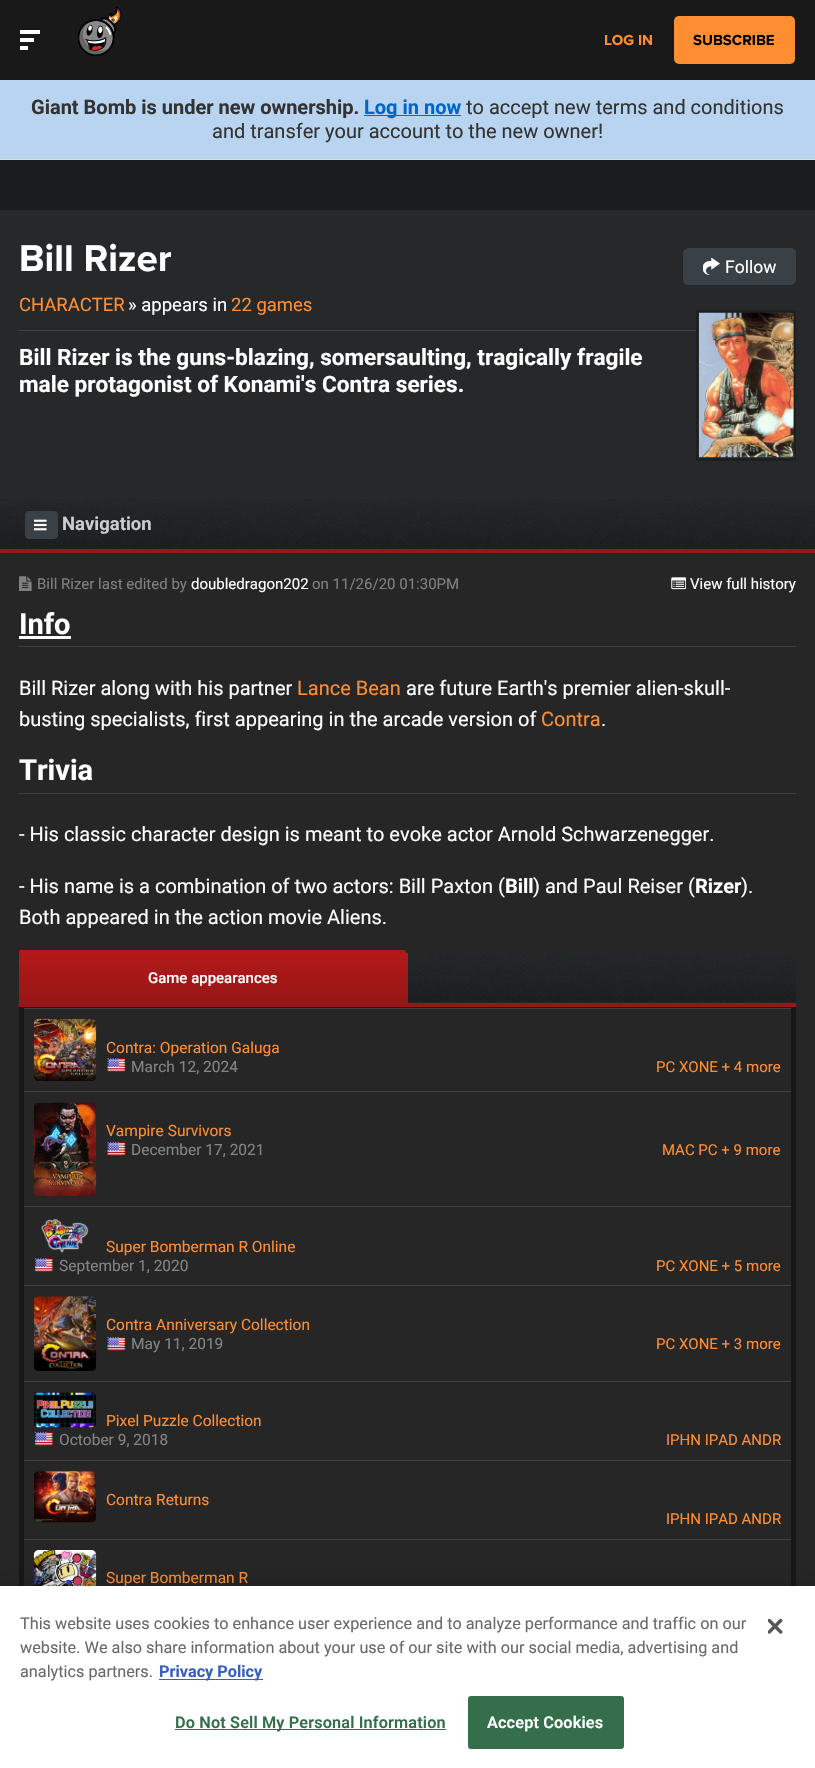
void draw(SkCanvas* canvas) {
    SkPaint paint;
    paint.setAntiAlias(true);
    auto face = [&](const char* family, int weight, float size, bool italic = false) {
        SkFontStyle style(weight, SkFontStyle::kNormal_Width,
            italic ? SkFontStyle::kItalic_Slant : SkFontStyle::kUpright_Slant);
        SkFont result(fontMgr->matchFamilyStyle(family, style), size);
        result.setSubpixel(true);
        return result;
    };
    auto write = [&](const char* s, float x, float y, const SkFont& font, SkColor color) {
        SkPaint ink(SkColor4f::FromColor(color));
        ink.setAntiAlias(true);
        canvas->drawString(s, x, y, font, ink);
    };
    auto writeSpaced = [&](const char* s, float x, float y, const SkFont& font, const SkPaint& ink, float letter, float word) {
        std::vector<SkGlyphID> glyphs(font.countText(s, strlen(s), SkTextEncoding::kUTF8));
        std::vector<float> xs(glyphs.size());
        font.textToGlyphs(s, strlen(s), SkTextEncoding::kUTF8, glyphs);
        font.getXPos(glyphs, xs, x);
        float extra = 0;
        for (size_t i = 0; i < glyphs.size(); i++) {
            xs[i] += extra;
            extra += letter + word * (glyphs[i] == font.unicharToGlyph(' '));
        }
        canvas->drawTextBlob(SkTextBlob::MakeFromPosHGlyphs(glyphs, xs, y, font), 0, 0, ink);
    };
    auto block = [&](float x, float y, float w, float h, SkColor color) {
        SkPaint ink(SkColor4f::FromColor(color));
        ink.setAntiAlias(true);
        canvas->drawRect(SkRect::MakeXYWH(x, y, w, h), ink);
    };
    auto card = [&](float x, float y, float w, float h, float radius, SkColor color) {
        SkPaint ink(SkColor4f::FromColor(color));
        ink.setAntiAlias(true);
        canvas->drawRoundRect(SkRect::MakeXYWH(x, y, w, h), radius, radius, ink);
    };
    auto paste = [&](const char* path, float x, float y, float w, float h) {
        auto image = SkImages::DeferredFromEncodedData(SkData::MakeFromFileName(path));
        canvas->drawImageRect(image, SkRect::MakeXYWH(x, y, w, h), SkSamplingOptions());
    };
    canvas->clear(SkColorSetRGB(38, 38, 38));
    block(0, 0, 815, 80, SkColorSetRGB(25, 25, 25));
    paste("pic1.png", 20, 30, 20, 20);
    paste("pic2.png", 78, 6, 44, 50);
    auto kFont1 = face("Proxima Nova", 700, 15);
    write("LOG IN", 604, 45, kFont1, SkColorSetRGB(255, 142, 51));
    card(674, 16, 121, 48, 5, SkColorSetRGB(255, 142, 51));
    write("SUBSCRIBE", 693, 45, kFont1, SK_ColorBLACK);
    block(0, 80, 815, 79, SkColorSetRGB(184, 212, 240));
    block(0, 159, 815, 1, SkColorSetRGB(221, 221, 221));
    auto kFont2 = face("Roboto", 700, 20);
    write("Giant Bomb is under new ownership.", 31, 114, kFont2, SkColorSetRGB(51, 51, 51));
    block(364, 115, 97, 1, SkColorSetRGB(0, 102, 204));
    write("Log in now", 364, 114, kFont2, SkColorSetRGB(0, 102, 204));
    auto kFont3 = face("Roboto", 400, 20);
    write("to accept new terms and conditions", 466, 114, kFont3, SkColorSetRGB(51, 51, 51));
    write("and transfer your account to the new owner!", 212, 138, kFont3, SkColorSetRGB(51, 51, 51));
    block(0, 160, 815, 50, SkColorSetRGB(27, 28, 29));
    block(0, 210, 815, 289, SkColorSetRGB(38, 40, 42));
    auto kFont4 = face("Proxima Nova", 700, 38.5f);
    write("Bill Rizer", 19, 271, kFont4, SK_ColorWHITE);
    paint.setColor(SkColorSetRGB(57, 64, 70));
    canvas->drawRoundRect(SkRect::MakeXYWH(683.5f, 248.5f, 112, 36), 4.5f, 4.5f, paint);
    paint.setStyle(SkPaint::kStroke_Style);
    paint.setStrokeWidth(1);
    canvas->drawRoundRect(SkRect::MakeXYWH(683.5f, 248.5f, 112, 36), 4.5f, 4.5f, paint);
    paste("pic3.png", 703, 258, 17, 17);
    auto kFont5 = face("Roboto", 400, 17.5f);
    write("Follow", 725, 273, kFont5, SK_ColorWHITE);
    block(19, 330, 677, 1, SkColorSetRGB(64, 64, 64));
    auto kFont6 = face("Roboto", 400, 18.5f);
    write("CHARACTER", 19, 311, kFont6, SkColorSetRGB(255, 142, 51));
    write("» appears in", 128, 311, kFont6, SK_ColorWHITE);
    write("22 games", 231, 311, kFont6, SkColorSetRGB(255, 142, 51));
    auto kFont7 = face("Roboto", 700, 22.6f);
    write("Bill Rizer is the guns-blazing, somersaulting, tragically fragile", 19, 365, kFont7, SK_ColorWHITE);
    write("male protagonist of Konami's Contra series.", 19, 392, kFont7, SK_ColorWHITE);
    paint.setStrokeWidth(3);
    paint.setColor(SkColorSetRGB(29, 31, 32));
    canvas->drawRect(SkRect::MakeXYWH(697.5f, 311.5f, 97, 148), paint);
    paste("pic4.png", 698, 312, 96, 146);
    paste("pic5.png", 0, 499, 815, 50);
    paint.setStyle(SkPaint::kFill_Style);
    paint.setColor(SkColorSetRGB(57, 64, 70));
    canvas->drawRoundRect(SkRect::MakeXYWH(25.5f, 511.5f, 32, 27), 3.5f, 3.5f, paint);
    paint.setStyle(SkPaint::kStroke_Style);
    paint.setStrokeWidth(1);
    canvas->drawRoundRect(SkRect::MakeXYWH(25.5f, 511.5f, 32, 27), 3.5f, 3.5f, paint);
    paste("pic6.png", 34, 519, 13, 12);
    auto kFont8 = face("Roboto", 700, 18.5f);
    write("Navigation", 62, 530, kFont8, SkColorSetRGB(204, 204, 204));
    block(0, 549, 815, 4, SkColorSetRGB(152, 22, 22));
    paste("pic7.png", 19, 576, 13, 15);
    auto kFont9 = face("Roboto", 400, 15);
    write("Bill Rizer last edited by", 37, 589, kFont9, SkColorSetRGB(128, 128, 128));
    write("doubledragon202", 191, 589, kFont9, SK_ColorWHITE);
    write("on 11/26/20 01:30PM", 312, 589, kFont9, SkColorSetRGB(128, 128, 128));
    paste("pic8.png", 671, 577, 15, 13);
    write("View full history", 690, 589, kFont9, SK_ColorWHITE);
    block(19, 646, 777, 1, SkColorSetRGB(64, 64, 64));
    auto kFont10 = face("Roboto", 700, 29);
    write("Info", 19, 634, kFont10, SK_ColorWHITE);
    block(19, 636, 52, 3, SK_ColorWHITE);
    write("Bill Rizer along with his partner", 19, 695, kFont3, SK_ColorWHITE);
    write("Lance Bean", 297, 695, kFont3, SkColorSetRGB(255, 142, 51));
    write("are future Earth's premier alien-skull-", 406, 695, kFont3, SK_ColorWHITE);
    write("busting specialists, first appearing in the arcade version of", 19, 726, kFont3, SK_ColorWHITE);
    write("Contra", 541, 726, kFont3, SkColorSetRGB(255, 142, 51));
    write(".", 601, 726, kFont3, SK_ColorWHITE);
    block(19, 793, 777, 1, SkColorSetRGB(64, 64, 64));
    write("Trivia", 19, 780, kFont10, SK_ColorWHITE);
    write("- His classic character design is meant to evoke actor Arnold Schwarzenegger.", 19, 841, kFont3, SK_ColorWHITE);
    write("- His name is a combination of two actors: Bill Paxton (", 19, 893, kFont3, SK_ColorWHITE);
    write("Bill", 505, 893, kFont2, SK_ColorWHITE);
    write(") and Paul Reiser (", 533, 893, kFont3, SK_ColorWHITE);
    write("Rizer", 695, 893, kFont2, SK_ColorWHITE);
    write(").", 741, 893, kFont3, SK_ColorWHITE);
    write("Both appeared in the action movie Aliens.", 19, 924, kFont3, SK_ColorWHITE);
    block(408, 1002, 388, 1, SkColorSetRGB(43, 46, 49));
    paste("pic9.png", 408, 953, 388, 50);
    paint.setStyle(SkPaint::kFill_Style);
    {
        const SkColor colors[] = {SkColorSetRGB(179, 25, 25), SkColorSetRGB(152, 22, 22)};
        const float stops[] = {0, 1};
        const SkPoint ends[] = {{213, 953}, {213, 1003}};
        paint.setShader(SkGradientShader::MakeLinear(ends, colors, stops, 2, SkTileMode::kClamp));
        paint.setAlpha(255);
    }
    canvas->drawRect(SkRect::MakeXYWH(19, 953, 389, 50), paint);
    paint.setShader(nullptr);
    paint.setColor(SkColorSetRGB(179, 25, 25));
    canvas->drawPath(SkPathBuilder().moveTo(21.5f, 950).lineTo(403.5f, 950).cubicTo(405, 950, 406, 951, 406, 952.5f).lineTo(406, 953).lineTo(19, 953).lineTo(19, 952.5f).cubicTo(19, 951, 20, 950, 21.5f, 950).close().detach(), paint);
    auto kFont11 = face("Roboto", 500, 15);
    write("Game appearances", 148, 983, kFont11, SK_ColorWHITE);
    paint.setStyle(SkPaint::kStroke_Style);
    paint.setStrokeWidth(5);
    paint.setColor(SkColorSetRGB(22, 23, 24));
    canvas->drawRect(SkRect::MakeXYWH(21.5f, 1005.5f, 772, 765), paint);
    block(19, 1003, 777, 4, SkColorSetRGB(152, 22, 22));
    block(24, 1008, 767, 1, SkColorSetRGB(64, 64, 64));
    paste("pic10.png", 33, 1018, 64, 63);
    auto kFont12 = face("Roboto", 400, 15.5f);
    write("Contra: Operation Galuga", 106, 1053, kFont12, SkColorSetRGB(255, 142, 51));
    paste("pic11.png", 107, 1058, 19, 14);
    write("March 12, 2024", 131, 1072, kFont12, SkColorSetRGB(130, 133, 135));
    write("PC XONE + 4 more", 656, 1072, kFont9, SkColorSetRGB(255, 142, 51));
    block(24, 1091, 767, 1, SkColorSetRGB(64, 64, 64));
    paste("pic12.png", 33, 1102, 64, 95);
    write("Vampire Survivors", 106, 1136, kFont12, SkColorSetRGB(255, 142, 51));
    paste("pic13.png", 107, 1141, 19, 15);
    write("December 17, 2021", 131, 1155, kFont12, SkColorSetRGB(130, 133, 135));
    write("MAC PC + 9 more", 662, 1155, kFont9, SkColorSetRGB(255, 142, 51));
    block(24, 1206, 767, 1, SkColorSetRGB(64, 64, 64));
    paste("pic14.png", 41, 1218, 48, 35);
    write("Super Bomberman R Online", 106, 1252, kFont12, SkColorSetRGB(255, 142, 51));
    paste("pic15.png", 34, 1258, 19, 14);
    write("September 1, 2020", 59, 1271, kFont12, SkColorSetRGB(130, 133, 135));
    write("PC XONE + 5 more", 656, 1271, kFont9, SkColorSetRGB(255, 142, 51));
    block(24, 1285, 767, 1, SkColorSetRGB(64, 64, 64));
    paste("pic16.png", 33, 1296, 64, 75);
    write("Contra Anniversary Collection", 106, 1330, kFont12, SkColorSetRGB(255, 142, 51));
    paste("pic13.png", 107, 1336, 19, 15);
    write("May 11, 2019", 131, 1349, kFont12, SkColorSetRGB(130, 133, 135));
    write("PC XONE + 3 more", 656, 1349, kFont9, SkColorSetRGB(255, 142, 51));
    block(24, 1381, 767, 1, SkColorSetRGB(64, 64, 64));
    paste("pic17.png", 34, 1392, 62, 36);
    write("Pixel Puzzle Collection", 106, 1426, kFont12, SkColorSetRGB(255, 142, 51));
    paste("pic18.png", 34, 1431, 19, 15);
    write("October 9, 2018", 59, 1445, kFont12, SkColorSetRGB(130, 133, 135));
    write("IPHN IPAD ANDR", 666, 1445, kFont9, SkColorSetRGB(255, 142, 51));
    block(24, 1460, 767, 1, SkColorSetRGB(64, 64, 64));
    paste("pic19.png", 34, 1471, 62, 52);
    write("Contra Returns", 106, 1505, kFont12, SkColorSetRGB(255, 142, 51));
    write("IPHN IPAD ANDR", 666, 1524, kFont9, SkColorSetRGB(255, 142, 51));
    block(24, 1539, 767, 1, SkColorSetRGB(64, 64, 64));
    paste("pic20.png", 33, 1550, 64, 36);
    write("Super Bomberman R", 106, 1583, kFont12, SkColorSetRGB(255, 142, 51));
    paint.setStyle(SkPaint::kFill_Style);
    paint.setColor(SkColorSetARGB(51, 0, 0, 0));
    paint.setMaskFilter(SkMaskFilter::MakeBlur(kNormal_SkBlurStyle, 11));
    canvas->drawRect(SkRect::MakeXYWH(0, 1586, 815, 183), paint);
    paint.setMaskFilter(nullptr);
    block(0, 1586, 815, 182, SK_ColorWHITE);
    auto kFont13 = face("Roboto", 400, 16.25f);
    write("This website uses cookies to enhance user experience and to analyze performance and traffic on our", 20, 1629, kFont13, SkColorSetRGB(105, 105, 105));
    write("website. We also share information about your use of our site with our social media, advertising and", 20, 1653, kFont13, SkColorSetRGB(105, 105, 105));
    write("analytics partners.", 20, 1677, kFont13, SkColorSetRGB(105, 105, 105));
    block(159, 1679, 104, 1, SkColorSetRGB(56, 96, 190));
    auto kFont14 = face("Roboto", 700, 16.25f);
    write("Privacy Policy", 159, 1677, kFont14, SkColorSetRGB(56, 96, 190));
    block(175, 1729, 271, 1, SkColorSetRGB(52, 110, 74));
    auto kFont15 = face("Roboto", 600, 16.25f);
    paint.setColor(SkColorSetRGB(52, 110, 74));
    writeSpaced("Do Not Sell My Personal Information", 175, 1728, kFont15, paint, 0.15f, 0);
    canvas->drawRoundRect(SkRect::MakeXYWH(468.5f, 1696.5f, 155, 52), 2, 2, paint);
    paint.setStyle(SkPaint::kStroke_Style);
    paint.setStrokeWidth(1);
    canvas->drawRoundRect(SkRect::MakeXYWH(468.5f, 1696.5f, 155, 52), 2, 2, paint);
    paint.setStyle(SkPaint::kFill_Style);
    paint.setColor(SK_ColorWHITE);
    writeSpaced("Accept Cookies", 487, 1728, kFont15, paint, 0.15f, 0);
    paste("pic21.png", 768, 1619, 15, 15);
}
